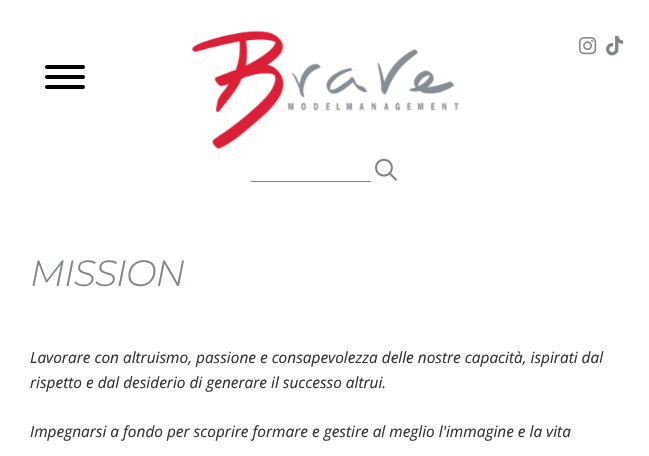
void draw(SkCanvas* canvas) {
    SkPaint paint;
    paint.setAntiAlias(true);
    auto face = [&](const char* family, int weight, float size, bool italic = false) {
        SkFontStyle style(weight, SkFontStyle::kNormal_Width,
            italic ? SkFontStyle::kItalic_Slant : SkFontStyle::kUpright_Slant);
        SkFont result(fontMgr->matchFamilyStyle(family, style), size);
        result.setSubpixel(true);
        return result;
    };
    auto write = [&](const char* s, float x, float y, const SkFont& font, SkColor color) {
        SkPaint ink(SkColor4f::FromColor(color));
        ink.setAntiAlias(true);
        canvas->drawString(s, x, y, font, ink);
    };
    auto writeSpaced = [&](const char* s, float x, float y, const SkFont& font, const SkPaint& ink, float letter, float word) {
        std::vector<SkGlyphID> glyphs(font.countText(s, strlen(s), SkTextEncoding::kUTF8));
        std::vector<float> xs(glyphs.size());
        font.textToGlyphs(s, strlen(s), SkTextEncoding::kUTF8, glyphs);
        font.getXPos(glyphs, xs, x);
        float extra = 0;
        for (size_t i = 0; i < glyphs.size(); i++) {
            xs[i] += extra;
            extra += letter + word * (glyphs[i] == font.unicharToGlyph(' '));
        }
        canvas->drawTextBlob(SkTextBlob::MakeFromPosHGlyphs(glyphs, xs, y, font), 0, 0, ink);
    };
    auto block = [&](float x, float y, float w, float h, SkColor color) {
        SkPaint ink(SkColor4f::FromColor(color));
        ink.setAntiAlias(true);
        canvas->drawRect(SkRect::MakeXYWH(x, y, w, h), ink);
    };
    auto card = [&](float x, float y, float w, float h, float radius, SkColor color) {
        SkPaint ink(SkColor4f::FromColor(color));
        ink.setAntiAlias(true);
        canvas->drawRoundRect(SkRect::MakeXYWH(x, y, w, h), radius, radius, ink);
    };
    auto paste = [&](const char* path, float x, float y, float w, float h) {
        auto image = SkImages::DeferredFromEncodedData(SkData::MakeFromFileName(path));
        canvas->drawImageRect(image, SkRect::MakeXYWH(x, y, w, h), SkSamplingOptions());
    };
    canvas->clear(SK_ColorWHITE);
    paste("pic1.png", 191, 30, 268, 119);
    paste("pic2.png", 579, 37, 18, 18);
    paste("pic3.png", 606, 35, 18, 21);
    card(45, 65, 40, 4, 2, SK_ColorBLACK);
    card(45, 75, 40, 4, 2, SK_ColorBLACK);
    card(45, 85, 40, 4, 2, SK_ColorBLACK);
    paste("pic4.png", 375, 158, 22, 23);
    block(251, 181, 120, 1, SkColorSetRGB(126, 134, 136));
    auto kFont1 = face("Montserrat", 300, 36.5f, true);
    paint.setColor(SkColorSetRGB(126, 134, 136));
    writeSpaced("MISSION", 30, 286, kFont1, paint, -1, 0);
    auto kFont2 = face("Open Sans", 400, 15.4f, true);
    write("Lavorare con altruismo, passione e consapevolezza delle nostre capacità, ispirati dal", 30, 363, kFont2, SkColorSetRGB(51, 51, 51));
    write("rispetto e dal desiderio di generare il successo altrui.", 30, 388, kFont2, SkColorSetRGB(51, 51, 51));
    write("Impegnarsi a fondo per scoprire formare e gestire al meglio l'immagine e la vita", 30, 437, kFont2, SkColorSetRGB(51, 51, 51));
}
